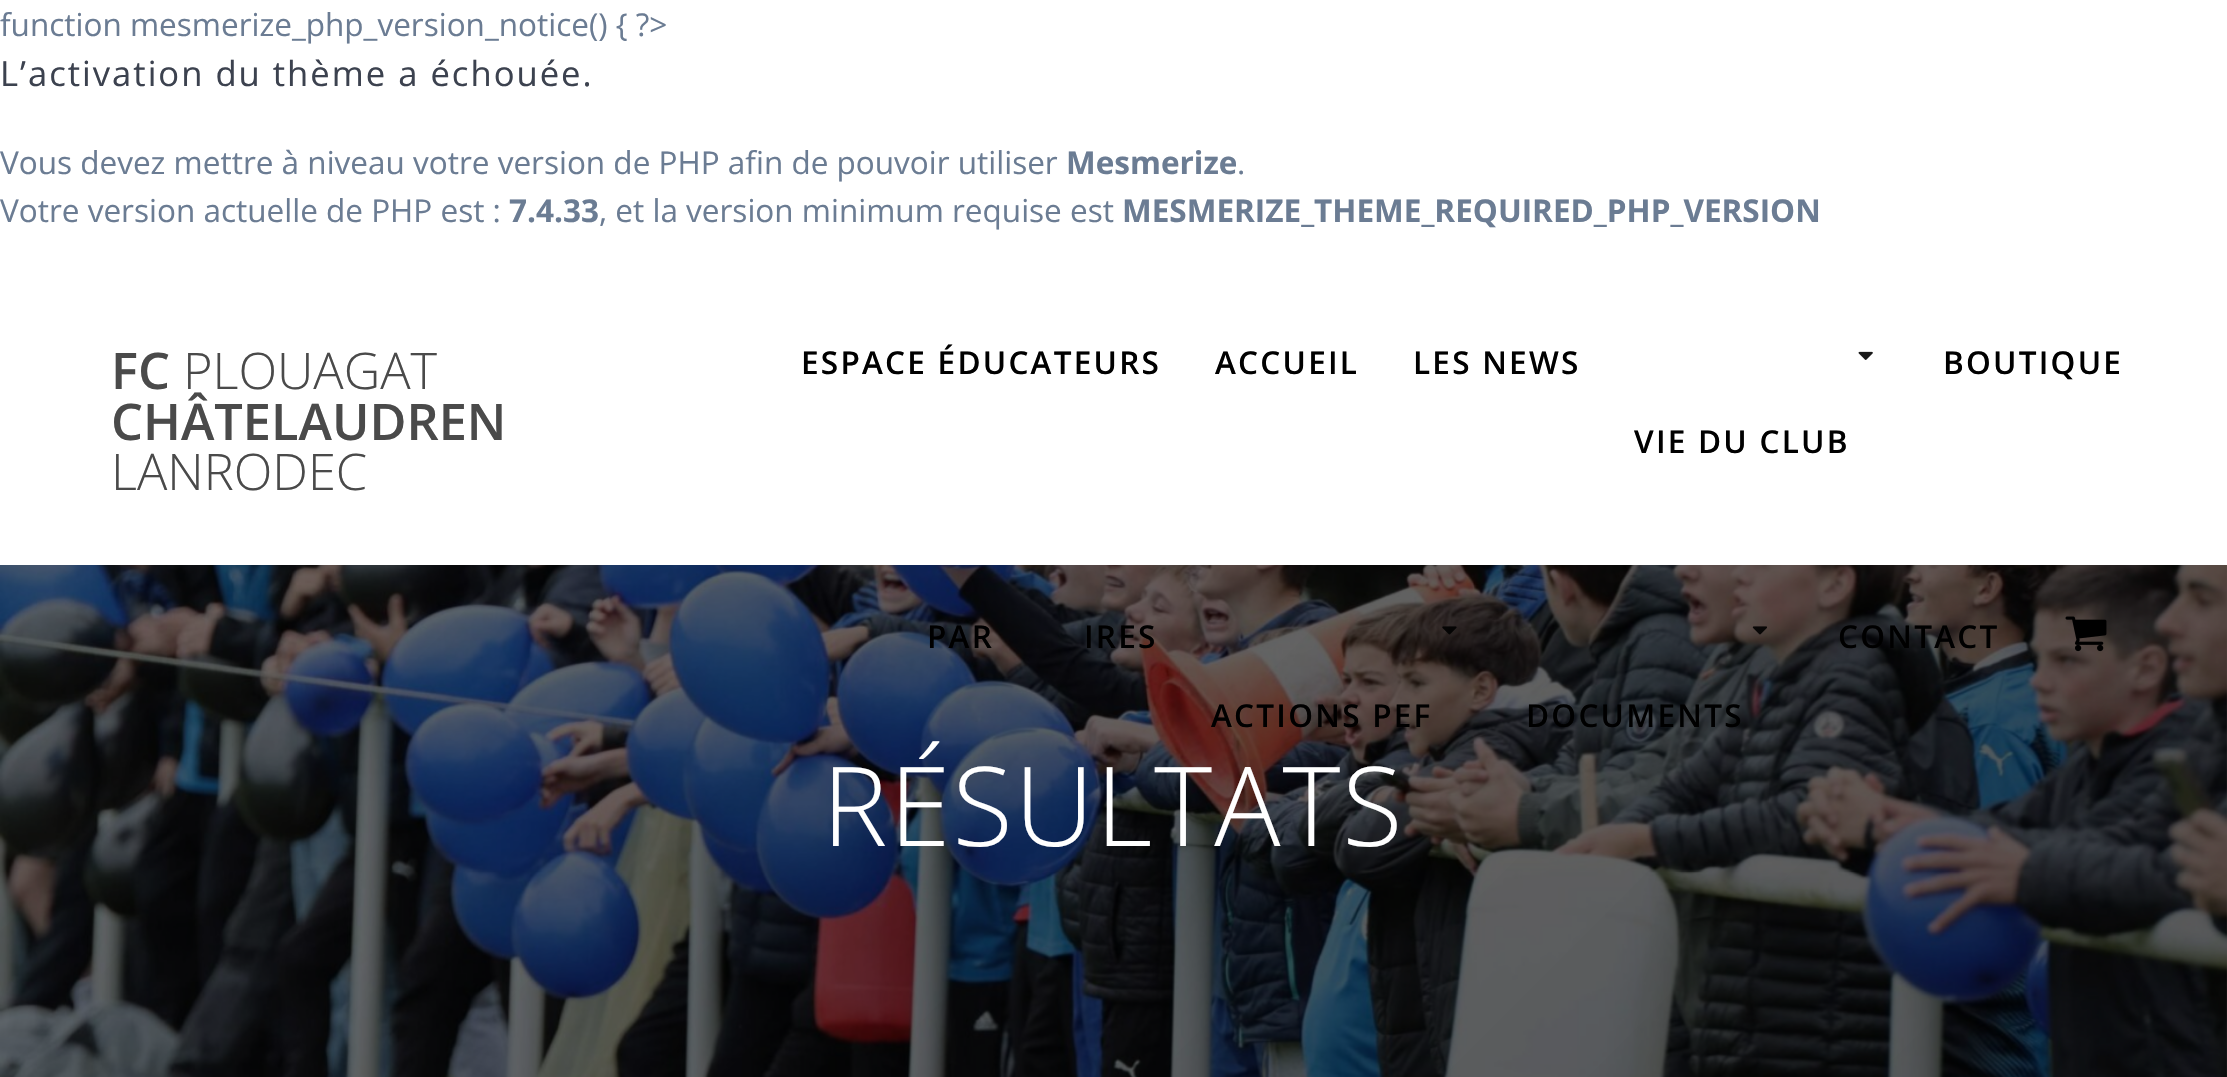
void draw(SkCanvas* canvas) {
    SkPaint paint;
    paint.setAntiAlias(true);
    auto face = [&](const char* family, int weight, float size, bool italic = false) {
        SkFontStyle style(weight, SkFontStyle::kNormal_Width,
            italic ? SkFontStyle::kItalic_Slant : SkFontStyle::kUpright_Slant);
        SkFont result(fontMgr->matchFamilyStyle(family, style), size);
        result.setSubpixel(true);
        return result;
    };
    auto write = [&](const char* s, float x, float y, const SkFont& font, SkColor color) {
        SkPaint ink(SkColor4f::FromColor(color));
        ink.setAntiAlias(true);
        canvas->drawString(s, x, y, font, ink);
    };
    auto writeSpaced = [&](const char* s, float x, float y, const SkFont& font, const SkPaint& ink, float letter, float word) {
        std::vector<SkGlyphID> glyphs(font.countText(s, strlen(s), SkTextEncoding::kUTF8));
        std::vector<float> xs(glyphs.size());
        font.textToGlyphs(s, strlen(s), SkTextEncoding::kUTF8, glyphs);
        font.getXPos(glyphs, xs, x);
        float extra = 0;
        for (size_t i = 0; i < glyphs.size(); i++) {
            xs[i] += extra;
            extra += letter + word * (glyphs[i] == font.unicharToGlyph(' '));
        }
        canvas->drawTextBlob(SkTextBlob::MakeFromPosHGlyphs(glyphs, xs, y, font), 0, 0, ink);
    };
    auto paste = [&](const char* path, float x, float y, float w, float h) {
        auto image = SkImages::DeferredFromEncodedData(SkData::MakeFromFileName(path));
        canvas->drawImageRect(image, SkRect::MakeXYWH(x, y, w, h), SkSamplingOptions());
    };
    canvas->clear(SK_ColorWHITE);
    auto kFont1 = face("Open Sans", 400, 31.5f);
    write("function mesmerize_php_version_notice() { ?>", 0, 36, kFont1, SkColorSetRGB(107, 124, 147));
    auto kFont2 = face("Open Sans", 400, 34.6f);
    paint.setColor(SkColorSetRGB(60, 66, 79));
    writeSpaced("L’activation du thème a échouée.", 0, 86, kFont2, paint, 2, 0);
    write("Vous devez mettre à niveau votre version de PHP afin de pouvoir utiliser", 0, 174, kFont1, SkColorSetRGB(107, 124, 147));
    auto kFont3 = face("Open Sans", 700, 31.5f);
    write("Mesmerize", 1066, 174, kFont3, SkColorSetRGB(107, 124, 147));
    write(".", 1237, 174, kFont1, SkColorSetRGB(107, 124, 147));
    write("Votre version actuelle de PHP est :", 0, 222, kFont1, SkColorSetRGB(107, 124, 147));
    write("7.4.33", 509, 222, kFont3, SkColorSetRGB(107, 124, 147));
    write(", et la version minimum requise est", 599, 222, kFont1, SkColorSetRGB(107, 124, 147));
    write("MESMERIZE_THEME_REQUIRED_PHP_VERSION", 1122, 222, kFont3, SkColorSetRGB(107, 124, 147));
    auto kFont4 = face("Open Sans", 600, 50.5f);
    write("FC", 111, 389, kFont4, SkColorSetRGB(74, 74, 74));
    auto kFont5 = face("Open Sans", 300, 50.5f);
    write("PLOUAGAT", 183, 389, kFont5, SkColorSetRGB(74, 74, 74));
    write("CHÂTELAUDREN", 111, 440, kFont4, SkColorSetRGB(74, 74, 74));
    write("LANRODEC", 111, 490, kFont5, SkColorSetRGB(74, 74, 74));
    auto kFont6 = face("Open Sans", 600, 31.5f);
    paint.setColor(SK_ColorBLACK);
    writeSpaced("ESPACE ÉDUCATEURS", 801, 374, kFont6, paint, 2.25f, 0);
    writeSpaced("ACCUEIL", 1215, 374, kFont6, paint, 2.25f, 0);
    writeSpaced("LES NEWS", 1413, 374, kFont6, paint, 2.25f, 0);
    writeSpaced("BOUTIQUE", 1943, 374, kFont6, paint, 2.25f, 0);
    paste("pic1.png", 1858, 351, 15, 9);
    writeSpaced("VIE DU CLUB", 1634, 453, kFont6, paint, 2.25f, 0);
    paste("pic5.png", 0, 565, 2227, 512);
    {
        const SkColor colors[] = {SkColorSetARGB(145, 0, 0, 0), SkColorSetARGB(166, 0, 0, 0)};
        const float stops[] = {0, 1};
        const SkPoint ends[] = {{355, -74}, {1872, 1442}};
        paint.setShader(SkGradientShader::MakeLinear(ends, colors, stops, 2, SkTileMode::kClamp));
        paint.setAlpha(255);
    }
    canvas->drawRect(SkRect::MakeXYWH(0, 565, 2227, 512), paint);
    paint.setShader(nullptr);
    paint.setColor(SK_ColorBLACK);
    writeSpaced("PAR", 927, 648, kFont6, paint, 2.25f, 0);
    writeSpaced("IRES", 1084, 648, kFont6, paint, 2.25f, 0);
    writeSpaced("CONTACT", 1838, 648, kFont6, paint, 2.25f, 0);
    paste("pic2.png", 2065, 616, 42, 36);
    paste("pic3.png", 1442, 626, 15, 9);
    writeSpaced("ACTIONS PEF", 1211, 727, kFont6, paint, 2.25f, 0);
    paste("pic4.png", 1752, 626, 15, 9);
    writeSpaced("DOCUMENTS", 1526, 727, kFont6, paint, 2.25f, 0);
    auto kFont7 = face("Open Sans", 300, 110.25f);
    paint.setColor(SK_ColorWHITE);
    writeSpaced("RÉSULTATS", 822, 846, kFont7, paint, 2, 0);
}
